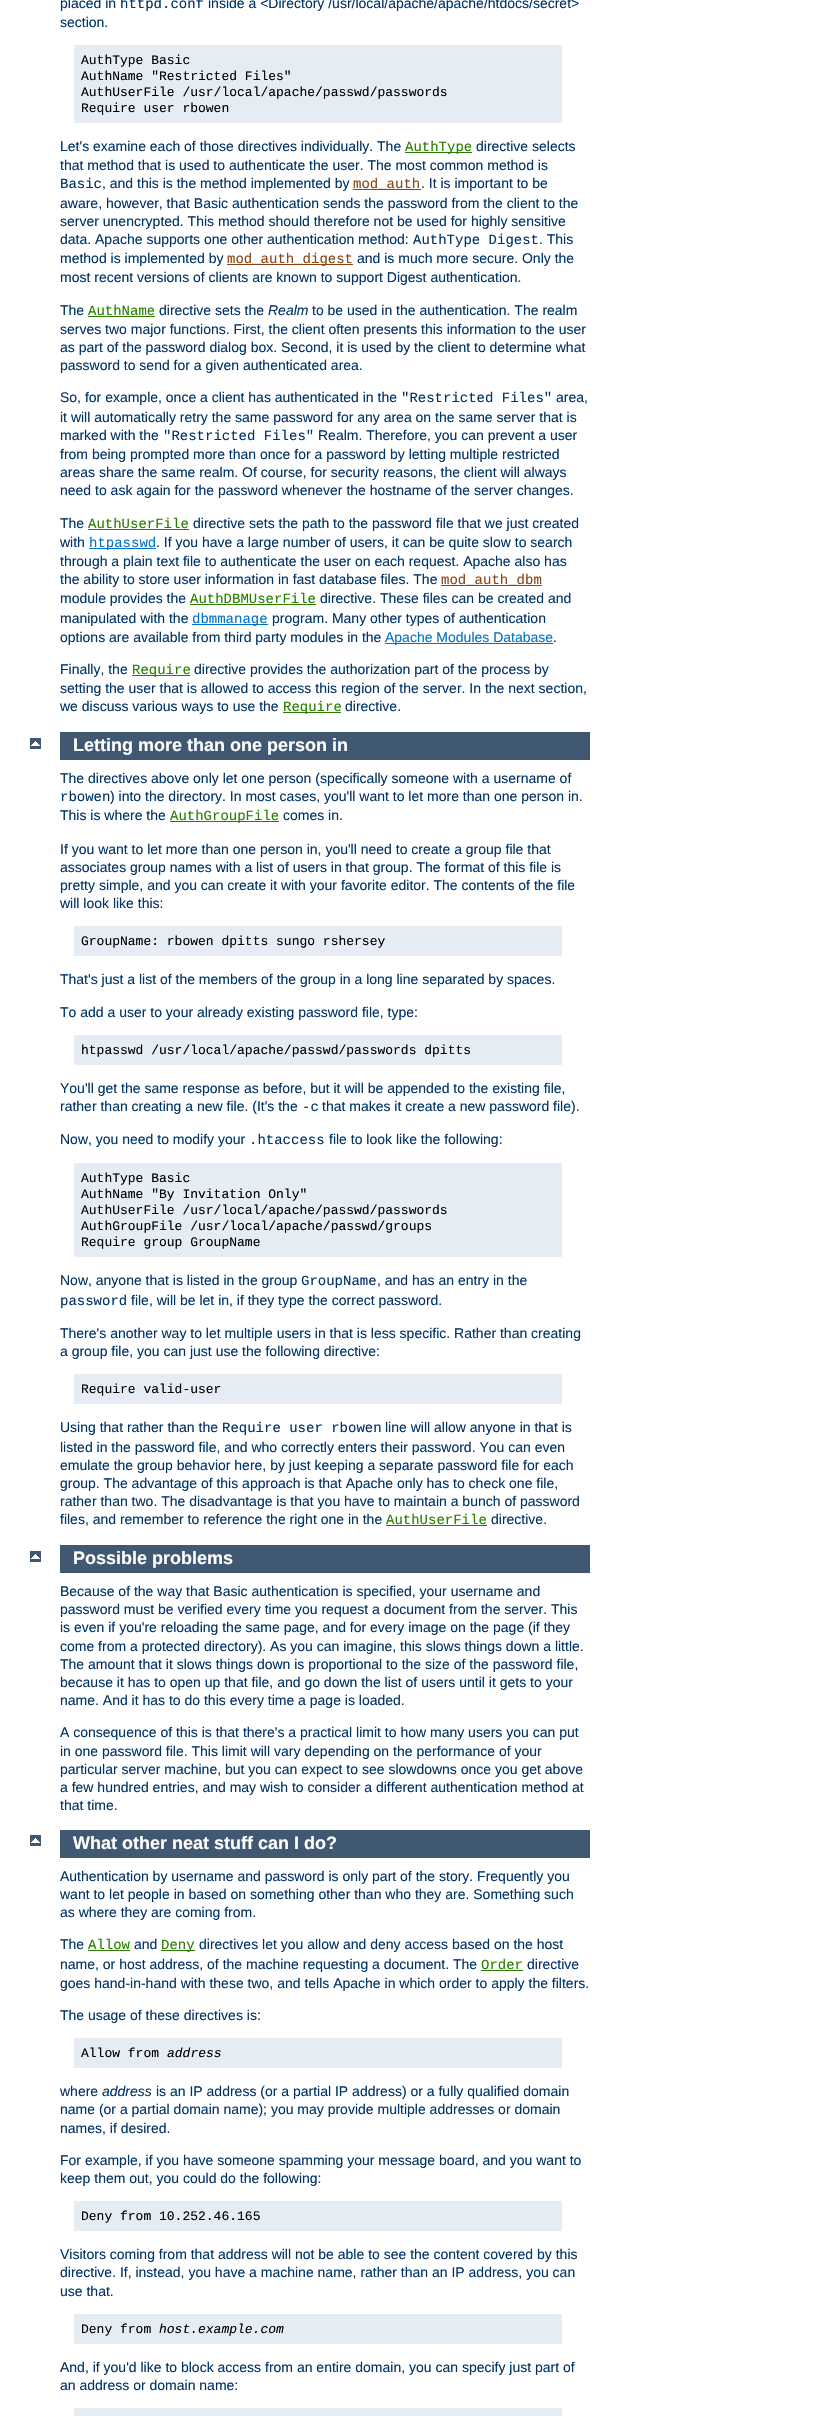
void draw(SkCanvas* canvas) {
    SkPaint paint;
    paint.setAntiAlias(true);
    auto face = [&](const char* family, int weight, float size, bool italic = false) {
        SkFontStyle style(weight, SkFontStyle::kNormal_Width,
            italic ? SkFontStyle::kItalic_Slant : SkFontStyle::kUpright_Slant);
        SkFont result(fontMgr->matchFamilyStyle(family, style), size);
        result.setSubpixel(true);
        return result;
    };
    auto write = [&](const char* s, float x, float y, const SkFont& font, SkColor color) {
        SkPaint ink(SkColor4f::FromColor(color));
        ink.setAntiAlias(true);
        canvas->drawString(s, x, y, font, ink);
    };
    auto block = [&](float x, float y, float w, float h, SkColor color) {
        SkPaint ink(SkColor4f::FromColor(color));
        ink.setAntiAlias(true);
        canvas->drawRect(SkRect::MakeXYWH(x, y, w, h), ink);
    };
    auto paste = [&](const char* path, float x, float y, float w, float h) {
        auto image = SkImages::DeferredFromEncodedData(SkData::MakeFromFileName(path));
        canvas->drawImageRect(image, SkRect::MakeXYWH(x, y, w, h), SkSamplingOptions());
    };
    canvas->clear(SK_ColorWHITE);
    auto kFont1 = face("Liberation Sans", 400, 14);
    write("placed in", 60, 8, kFont1, SkColorSetRGB(0, 51, 102));
    auto kFont2 = face("Liberation Mono", 400, 14);
    write("httpd.conf", 120, 8, kFont2, SkColorSetRGB(0, 51, 102));
    write("inside a <Directory /usr/local/apache/apache/htdocs/secret>", 208, 8, kFont1, SkColorSetRGB(0, 51, 102));
    write("section.", 60, 27, kFont1, SkColorSetRGB(0, 51, 102));
    block(74, 45, 488, 78, SkColorSetRGB(229, 236, 243));
    auto kFont3 = face("Liberation Mono", 400, 13);
    write("AuthType Basic", 81, 64, kFont3, SK_ColorBLACK);
    write("AuthName \"Restricted Files\"", 81, 80, kFont3, SK_ColorBLACK);
    write("AuthUserFile /usr/local/apache/passwd/passwords", 81, 96, kFont3, SK_ColorBLACK);
    write("Require user rbowen", 81, 112, kFont3, SK_ColorBLACK);
    write("Let's examine each of those directives individually. The", 60, 151, kFont1, SkColorSetRGB(0, 51, 102));
    block(405, 152, 67, 1, SkColorSetRGB(40, 127, 0));
    write("AuthType", 405, 151, kFont2, SkColorSetRGB(40, 127, 0));
    write("directive selects", 476, 151, kFont1, SkColorSetRGB(0, 51, 102));
    write("that method that is used to authenticate the user. The most common method is", 60, 170, kFont1, SkColorSetRGB(0, 51, 102));
    write("Basic", 60, 188, kFont2, SkColorSetRGB(0, 51, 102));
    write(", and this is the method implemented by", 102, 188, kFont1, SkColorSetRGB(0, 51, 102));
    block(353, 189, 68, 1, SkColorSetRGB(139, 69, 19));
    write("mod_auth", 353, 188, kFont2, SkColorSetRGB(139, 69, 19));
    write(". It is important to be", 421, 188, kFont1, SkColorSetRGB(0, 51, 102));
    write("aware, however, that Basic authentication sends the password from the client to the", 60, 208, kFont1, SkColorSetRGB(0, 51, 102));
    write("server unencrypted. This method should therefore not be used for highly sensitive", 60, 226, kFont1, SkColorSetRGB(0, 51, 102));
    write("data. Apache supports one other authentication method:", 60, 244, kFont1, SkColorSetRGB(0, 51, 102));
    write("AuthType Digest", 413, 244, kFont2, SkColorSetRGB(0, 51, 102));
    write(". This", 539, 244, kFont1, SkColorSetRGB(0, 51, 102));
    write("method is implemented by", 60, 263, kFont1, SkColorSetRGB(0, 51, 102));
    block(227, 264, 126, 1, SkColorSetRGB(139, 69, 19));
    write("mod_auth_digest", 227, 263, kFont2, SkColorSetRGB(139, 69, 19));
    write("and is much more secure. Only the", 357, 263, kFont1, SkColorSetRGB(0, 51, 102));
    write("most recent versions of clients are known to support Digest authentication.", 60, 282, kFont1, SkColorSetRGB(0, 51, 102));
    write("The", 60, 315, kFont1, SkColorSetRGB(0, 51, 102));
    write("AuthName", 88, 315, kFont2, SkColorSetRGB(40, 127, 0));
    block(88, 316, 67, 1, SkColorSetRGB(40, 127, 0));
    write("directive sets the", 159, 315, kFont1, SkColorSetRGB(0, 51, 102));
    auto kFont4 = face("Liberation Sans", 400, 14, true);
    write("Realm", 268, 315, kFont4, SkColorSetRGB(0, 51, 102));
    write("to be used in the authentication. The realm", 312, 315, kFont1, SkColorSetRGB(0, 51, 102));
    write("serves two major functions. First, the client often presents this information to the user", 60, 334, kFont1, SkColorSetRGB(0, 51, 102));
    write("as part of the password dialog box. Second, it is used by the client to determine what", 60, 352, kFont1, SkColorSetRGB(0, 51, 102));
    write("password to send for a given authenticated area.", 60, 370, kFont1, SkColorSetRGB(0, 51, 102));
    write("So, for example, once a client has authenticated in the", 60, 402, kFont1, SkColorSetRGB(0, 51, 102));
    write("\"Restricted Files\"", 401, 402, kFont2, SkColorSetRGB(0, 51, 102));
    write("area,", 556, 402, kFont1, SkColorSetRGB(0, 51, 102));
    write("it will automatically retry the same password for any area on the same server that is", 60, 422, kFont1, SkColorSetRGB(0, 51, 102));
    write("marked with the", 60, 440, kFont1, SkColorSetRGB(0, 51, 102));
    write("\"Restricted Files\"", 163, 440, kFont2, SkColorSetRGB(0, 51, 102));
    write("Realm. Therefore, you can prevent a user", 318, 440, kFont1, SkColorSetRGB(0, 51, 102));
    write("from being prompted more than once for a password by letting multiple restricted", 60, 459, kFont1, SkColorSetRGB(0, 51, 102));
    write("areas share the same realm. Of course, for security reasons, the client will always", 60, 477, kFont1, SkColorSetRGB(0, 51, 102));
    write("need to ask again for the password whenever the hostname of the server changes.", 60, 495, kFont1, SkColorSetRGB(0, 51, 102));
    write("The", 60, 528, kFont1, SkColorSetRGB(0, 51, 102));
    write("AuthUserFile", 88, 528, kFont2, SkColorSetRGB(40, 127, 0));
    block(88, 529, 101, 1, SkColorSetRGB(40, 127, 0));
    write("directive sets the path to the password file that we just created", 193, 528, kFont1, SkColorSetRGB(0, 51, 102));
    write("with", 60, 547, kFont1, SkColorSetRGB(0, 51, 102));
    block(89, 548, 67, 1, SkColorSetRGB(0, 115, 199));
    write("htpasswd", 89, 547, kFont2, SkColorSetRGB(0, 115, 199));
    write(". If you have a large number of users, it can be quite slow to search", 156, 547, kFont1, SkColorSetRGB(0, 51, 102));
    write("through a plain text file to authenticate the user on each request. Apache also has", 60, 566, kFont1, SkColorSetRGB(0, 51, 102));
    write("the ability to store user information in fast database files. The", 60, 584, kFont1, SkColorSetRGB(0, 51, 102));
    block(441, 585, 101, 1, SkColorSetRGB(139, 69, 19));
    write("mod_auth_dbm", 441, 584, kFont2, SkColorSetRGB(139, 69, 19));
    write("module provides the", 60, 603, kFont1, SkColorSetRGB(0, 51, 102));
    write("AuthDBMUserFile", 190, 603, kFont2, SkColorSetRGB(40, 127, 0));
    block(190, 604, 126, 1, SkColorSetRGB(40, 127, 0));
    write("directive. These files can be created and", 320, 603, kFont1, SkColorSetRGB(0, 51, 102));
    write("manipulated with the", 60, 623, kFont1, SkColorSetRGB(0, 51, 102));
    block(192, 624, 76, 1, SkColorSetRGB(0, 115, 199));
    write("dbmmanage", 192, 623, kFont2, SkColorSetRGB(0, 115, 199));
    write("program. Many other types of authentication", 272, 623, kFont1, SkColorSetRGB(0, 51, 102));
    write("options are available from third party modules in the", 60, 642, kFont1, SkColorSetRGB(0, 51, 102));
    block(385, 643, 168, 1, SkColorSetRGB(0, 115, 199));
    write("Apache Modules Database", 385, 642, kFont1, SkColorSetRGB(0, 115, 199));
    write(".", 553, 642, kFont1, SkColorSetRGB(0, 51, 102));
    write("Finally, the", 60, 674, kFont1, SkColorSetRGB(0, 51, 102));
    block(132, 675, 58, 1, SkColorSetRGB(40, 127, 0));
    write("Require", 132, 674, kFont2, SkColorSetRGB(40, 127, 0));
    write("directive provides the authorization part of the process by", 194, 674, kFont1, SkColorSetRGB(0, 51, 102));
    write("setting the user that is allowed to access this region of the server. In the next section,", 60, 693, kFont1, SkColorSetRGB(0, 51, 102));
    write("we discuss various ways to use the", 60, 711, kFont1, SkColorSetRGB(0, 51, 102));
    block(283, 712, 58, 1, SkColorSetRGB(40, 127, 0));
    write("Require", 283, 711, kFont2, SkColorSetRGB(40, 127, 0));
    write("directive.", 345, 711, kFont1, SkColorSetRGB(0, 51, 102));
    paste("pic1.png", 30, 738, 11, 11);
    block(60, 732, 530, 28, SkColorSetRGB(64, 88, 113));
    auto kFont5 = face("Liberation Sans", 700, 18);
    write("Letting more than one person in", 73, 751, kFont5, SK_ColorWHITE);
    write("The directives above only let one person (specifically someone with a username of", 60, 783, kFont1, SkColorSetRGB(0, 51, 102));
    write("rbowen", 60, 801, kFont2, SkColorSetRGB(0, 51, 102));
    write(") into the directory. In most cases, you'll want to let more than one person in.", 110, 801, kFont1, SkColorSetRGB(0, 51, 102));
    write("This is where the", 60, 820, kFont1, SkColorSetRGB(0, 51, 102));
    block(170, 821, 109, 1, SkColorSetRGB(40, 127, 0));
    write("AuthGroupFile", 170, 820, kFont2, SkColorSetRGB(40, 127, 0));
    write("comes in.", 283, 820, kFont1, SkColorSetRGB(0, 51, 102));
    write("If you want to let more than one person in, you'll need to create a group file that", 60, 854, kFont1, SkColorSetRGB(0, 51, 102));
    write("associates group names with a list of users in that group. The format of this file is", 60, 872, kFont1, SkColorSetRGB(0, 51, 102));
    write("pretty simple, and you can create it with your favorite editor. The contents of the file", 60, 890, kFont1, SkColorSetRGB(0, 51, 102));
    write("will look like this:", 60, 908, kFont1, SkColorSetRGB(0, 51, 102));
    block(74, 926, 488, 30, SkColorSetRGB(229, 236, 243));
    write("GroupName: rbowen dpitts sungo rshersey", 81, 945, kFont3, SK_ColorBLACK);
    write("That's just a list of the members of the group in a long line separated by spaces.", 60, 984, kFont1, SkColorSetRGB(0, 51, 102));
    write("To add a user to your already existing password file, type:", 60, 1017, kFont1, SkColorSetRGB(0, 51, 102));
    block(74, 1035, 488, 30, SkColorSetRGB(229, 236, 243));
    write("htpasswd /usr/local/apache/passwd/passwords dpitts", 81, 1054, kFont3, SK_ColorBLACK);
    write("You'll get the same response as before, but it will be appended to the existing file,", 60, 1093, kFont1, SkColorSetRGB(0, 51, 102));
    write("rather than creating a new file. (It's the", 60, 1111, kFont1, SkColorSetRGB(0, 51, 102));
    write("-c", 302, 1111, kFont2, SkColorSetRGB(0, 51, 102));
    write("that makes it create a new password file).", 322, 1111, kFont1, SkColorSetRGB(0, 51, 102));
    write("Now, you need to modify your", 60, 1144, kFont1, SkColorSetRGB(0, 51, 102));
    write(".htaccess", 249, 1144, kFont2, SkColorSetRGB(0, 51, 102));
    write("file to look like the following:", 329, 1144, kFont1, SkColorSetRGB(0, 51, 102));
    block(74, 1163, 488, 94, SkColorSetRGB(229, 236, 243));
    write("AuthType Basic", 81, 1182, kFont3, SK_ColorBLACK);
    write("AuthName \"By Invitation Only\"", 81, 1198, kFont3, SK_ColorBLACK);
    write("AuthUserFile /usr/local/apache/passwd/passwords", 81, 1214, kFont3, SK_ColorBLACK);
    write("AuthGroupFile /usr/local/apache/passwd/groups", 81, 1230, kFont3, SK_ColorBLACK);
    write("Require group GroupName", 81, 1246, kFont3, SK_ColorBLACK);
    write("Now, anyone that is listed in the group", 60, 1285, kFont1, SkColorSetRGB(0, 51, 102));
    write("GroupName", 301, 1285, kFont2, SkColorSetRGB(0, 51, 102));
    write(", and has an entry in the", 377, 1285, kFont1, SkColorSetRGB(0, 51, 102));
    write("password", 60, 1305, kFont2, SkColorSetRGB(0, 51, 102));
    write("file, will be let in, if they type the correct password.", 131, 1305, kFont1, SkColorSetRGB(0, 51, 102));
    write("There's another way to let multiple users in that is less specific. Rather than creating", 60, 1338, kFont1, SkColorSetRGB(0, 51, 102));
    write("a group file, you can just use the following directive:", 60, 1356, kFont1, SkColorSetRGB(0, 51, 102));
    block(74, 1374, 488, 30, SkColorSetRGB(229, 236, 243));
    write("Require valid-user", 81, 1393, kFont3, SK_ColorBLACK);
    write("Using that rather than the", 60, 1432, kFont1, SkColorSetRGB(0, 51, 102));
    write("Require user rbowen", 222, 1432, kFont2, SkColorSetRGB(0, 51, 102));
    write("line will allow anyone in that is", 385, 1432, kFont1, SkColorSetRGB(0, 51, 102));
    write("listed in the password file, and who correctly enters their password. You can even", 60, 1452, kFont1, SkColorSetRGB(0, 51, 102));
    write("emulate the group behavior here, by just keeping a separate password file for each", 60, 1470, kFont1, SkColorSetRGB(0, 51, 102));
    write("group. The advantage of this approach is that Apache only has to check one file,", 60, 1488, kFont1, SkColorSetRGB(0, 51, 102));
    write("rather than two. The disadvantage is that you have to maintain a bunch of password", 60, 1506, kFont1, SkColorSetRGB(0, 51, 102));
    write("files, and remember to reference the right one in the", 60, 1524, kFont1, SkColorSetRGB(0, 51, 102));
    write("AuthUserFile", 386, 1524, kFont2, SkColorSetRGB(40, 127, 0));
    block(386, 1525, 101, 1, SkColorSetRGB(40, 127, 0));
    write("directive.", 491, 1524, kFont1, SkColorSetRGB(0, 51, 102));
    paste("pic1.png", 30, 1551, 11, 11);
    block(60, 1545, 530, 28, SkColorSetRGB(64, 88, 113));
    write("Possible problems", 73, 1564, kFont5, SK_ColorWHITE);
    write("Because of the way that Basic authentication is specified, your username and", 60, 1596, kFont1, SkColorSetRGB(0, 51, 102));
    write("password must be verified every time you request a document from the server. This", 60, 1614, kFont1, SkColorSetRGB(0, 51, 102));
    write("is even if you're reloading the same page, and for every image on the page (if they", 60, 1632, kFont1, SkColorSetRGB(0, 51, 102));
    write("come from a protected directory). As you can imagine, this slows things down a little.", 60, 1651, kFont1, SkColorSetRGB(0, 51, 102));
    write("The amount that it slows things down is proportional to the size of the password file,", 60, 1669, kFont1, SkColorSetRGB(0, 51, 102));
    write("because it has to open up that file, and go down the list of users until it gets to your", 60, 1687, kFont1, SkColorSetRGB(0, 51, 102));
    write("name. And it has to do this every time a page is loaded.", 60, 1705, kFont1, SkColorSetRGB(0, 51, 102));
    write("A consequence of this is that there's a practical limit to how many users you can put", 60, 1737, kFont1, SkColorSetRGB(0, 51, 102));
    write("in one password file. This limit will vary depending on the performance of your", 60, 1756, kFont1, SkColorSetRGB(0, 51, 102));
    write("particular server machine, but you can expect to see slowdowns once you get above", 60, 1774, kFont1, SkColorSetRGB(0, 51, 102));
    write("a few hundred entries, and may wish to consider a different authentication method at", 60, 1792, kFont1, SkColorSetRGB(0, 51, 102));
    write("that time.", 60, 1810, kFont1, SkColorSetRGB(0, 51, 102));
    paste("pic1.png", 30, 1835, 11, 11);
    block(60, 1830, 530, 28, SkColorSetRGB(64, 88, 113));
    write("What other neat stuff can I do?", 73, 1849, kFont5, SK_ColorWHITE);
    write("Authentication by username and password is only part of the story. Frequently you", 60, 1881, kFont1, SkColorSetRGB(0, 51, 102));
    write("want to let people in based on something other than who they are. Something such", 60, 1899, kFont1, SkColorSetRGB(0, 51, 102));
    write("as where they are coming from.", 60, 1917, kFont1, SkColorSetRGB(0, 51, 102));
    write("The", 60, 1949, kFont1, SkColorSetRGB(0, 51, 102));
    write("Allow", 88, 1949, kFont2, SkColorSetRGB(40, 127, 0));
    block(88, 1950, 42, 1, SkColorSetRGB(40, 127, 0));
    write("and", 134, 1949, kFont1, SkColorSetRGB(0, 51, 102));
    block(161, 1950, 34, 1, SkColorSetRGB(40, 127, 0));
    write("Deny", 161, 1949, kFont2, SkColorSetRGB(40, 127, 0));
    write("directives let you allow and deny access based on the host", 199, 1949, kFont1, SkColorSetRGB(0, 51, 102));
    write("name, or host address, of the machine requesting a document. The", 60, 1969, kFont1, SkColorSetRGB(0, 51, 102));
    write("Order", 481, 1969, kFont2, SkColorSetRGB(40, 127, 0));
    block(481, 1970, 42, 1, SkColorSetRGB(40, 127, 0));
    write("directive", 527, 1969, kFont1, SkColorSetRGB(0, 51, 102));
    write("goes hand-in-hand with these two, and tells Apache in which order to apply the filters.", 60, 1988, kFont1, SkColorSetRGB(0, 51, 102));
    write("The usage of these directives is:", 60, 2020, kFont1, SkColorSetRGB(0, 51, 102));
    block(74, 2038, 488, 30, SkColorSetRGB(229, 236, 243));
    write("Allow from", 81, 2057, kFont3, SK_ColorBLACK);
    auto kFont6 = face("Liberation Mono", 400, 13, true);
    write("address", 167, 2057, kFont6, SK_ColorBLACK);
    write("where", 60, 2096, kFont1, SkColorSetRGB(0, 51, 102));
    write("address", 102, 2096, kFont4, SkColorSetRGB(0, 51, 102));
    write("is an IP address (or a partial IP address) or a fully qualified domain", 156, 2096, kFont1, SkColorSetRGB(0, 51, 102));
    write("name (or a partial domain name); you may provide multiple addresses or domain", 60, 2114, kFont1, SkColorSetRGB(0, 51, 102));
    write("names, if desired.", 60, 2133, kFont1, SkColorSetRGB(0, 51, 102));
    write("For example, if you have someone spamming your message board, and you want to", 60, 2165, kFont1, SkColorSetRGB(0, 51, 102));
    write("keep them out, you could do the following:", 60, 2183, kFont1, SkColorSetRGB(0, 51, 102));
    block(74, 2201, 488, 30, SkColorSetRGB(229, 236, 243));
    write("Deny from 10.252.46.165", 81, 2220, kFont3, SK_ColorBLACK);
    write("Visitors coming from that address will not be able to see the content covered by this", 60, 2259, kFont1, SkColorSetRGB(0, 51, 102));
    write("directive. If, instead, you have a machine name, rather than an IP address, you can", 60, 2277, kFont1, SkColorSetRGB(0, 51, 102));
    write("use that.", 60, 2296, kFont1, SkColorSetRGB(0, 51, 102));
    block(74, 2314, 488, 30, SkColorSetRGB(229, 236, 243));
    write("Deny from", 81, 2333, kFont3, SK_ColorBLACK);
    write("host.example.com", 159, 2333, kFont6, SK_ColorBLACK);
    write("And, if you'd like to block access from an entire domain, you can specify just part of", 60, 2372, kFont1, SkColorSetRGB(0, 51, 102));
    write("an address or domain name:", 60, 2390, kFont1, SkColorSetRGB(0, 51, 102));
    block(74, 2408, 488, 8, SkColorSetRGB(229, 236, 243));
}
